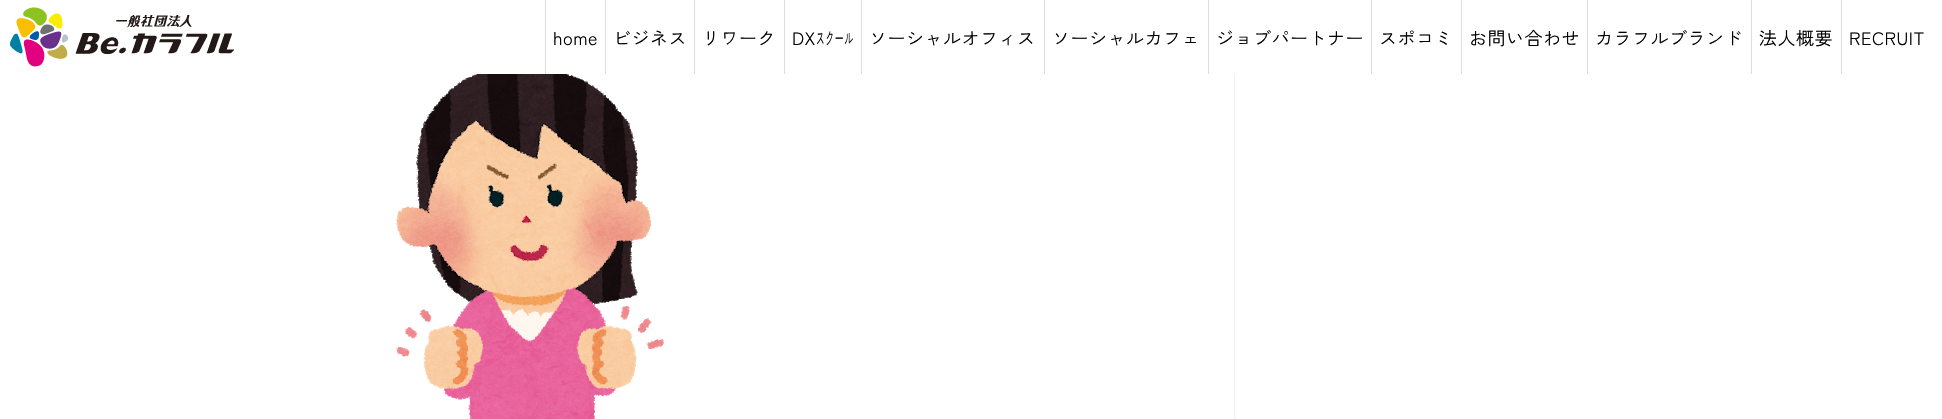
void draw(SkCanvas* canvas) {
    SkPaint paint;
    paint.setAntiAlias(true);
    auto face = [&](const char* family, int weight, float size, bool italic = false) {
        SkFontStyle style(weight, SkFontStyle::kNormal_Width,
            italic ? SkFontStyle::kItalic_Slant : SkFontStyle::kUpright_Slant);
        SkFont result(fontMgr->matchFamilyStyle(family, style), size);
        result.setSubpixel(true);
        return result;
    };
    auto writeSpaced = [&](const char* s, float x, float y, const SkFont& font, const SkPaint& ink, float letter, float word) {
        std::vector<SkGlyphID> glyphs(font.countText(s, strlen(s), SkTextEncoding::kUTF8));
        std::vector<float> xs(glyphs.size());
        font.textToGlyphs(s, strlen(s), SkTextEncoding::kUTF8, glyphs);
        font.getXPos(glyphs, xs, x);
        float extra = 0;
        for (size_t i = 0; i < glyphs.size(); i++) {
            xs[i] += extra;
            extra += letter + word * (glyphs[i] == font.unicharToGlyph(' '));
        }
        canvas->drawTextBlob(SkTextBlob::MakeFromPosHGlyphs(glyphs, xs, y, font), 0, 0, ink);
    };
    auto block = [&](float x, float y, float w, float h, SkColor color) {
        SkPaint ink(SkColor4f::FromColor(color));
        ink.setAntiAlias(true);
        canvas->drawRect(SkRect::MakeXYWH(x, y, w, h), ink);
    };
    auto paste = [&](const char* path, float x, float y, float w, float h) {
        auto image = SkImages::DeferredFromEncodedData(SkData::MakeFromFileName(path));
        canvas->drawImageRect(image, SkRect::MakeXYWH(x, y, w, h), SkSamplingOptions());
    };
    canvas->clear(SK_ColorWHITE);
    paste("pic1.png", 10, 7, 224, 60);
    block(545, 0, 1, 74, SkColorSetRGB(221, 221, 221));
    auto kFont1 = face("Zen Kaku Gothic New", 400, 18);
    paint.setColor(SK_ColorBLACK);
    writeSpaced("home", 553, 45, kFont1, paint, 0.5f, 0);
    block(605, 0, 1, 74, SkColorSetRGB(221, 221, 221));
    writeSpaced("ビジネス", 613, 45, kFont1, paint, 0.5f, 0);
    block(694, 0, 1, 74, SkColorSetRGB(221, 221, 221));
    writeSpaced("リワーク", 702, 45, kFont1, paint, 0.5f, 0);
    block(784, 0, 1, 74, SkColorSetRGB(221, 221, 221));
    writeSpaced("DXｽｸｰﾙ", 792, 45, kFont1, paint, 0.5f, 0);
    block(861, 0, 1, 74, SkColorSetRGB(221, 221, 221));
    writeSpaced("ソーシャルオフィス", 869, 45, kFont1, paint, 0.5f, 0);
    block(1044, 0, 1, 74, SkColorSetRGB(221, 221, 221));
    writeSpaced("ソーシャルカフェ", 1052, 45, kFont1, paint, 0.5f, 0);
    block(1208, 0, 1, 74, SkColorSetRGB(221, 221, 221));
    writeSpaced("ジョブパートナー", 1216, 45, kFont1, paint, 0.5f, 0);
    block(1371, 0, 1, 74, SkColorSetRGB(221, 221, 221));
    writeSpaced("スポコミ", 1379, 45, kFont1, paint, 0.5f, 0);
    block(1461, 0, 1, 74, SkColorSetRGB(221, 221, 221));
    writeSpaced("お問い合わせ", 1469, 45, kFont1, paint, 0.5f, 0);
    block(1587, 0, 1, 74, SkColorSetRGB(221, 221, 221));
    writeSpaced("カラフルブランド", 1595, 45, kFont1, paint, 0.5f, 0);
    block(1751, 0, 1, 74, SkColorSetRGB(221, 221, 221));
    writeSpaced("法人概要", 1759, 45, kFont1, paint, 0.5f, 0);
    block(1841, 0, 1, 74, SkColorSetRGB(221, 221, 221));
    writeSpaced("RECRUIT", 1849, 45, kFont1, paint, 0.5f, 0);
    block(1234, 74, 1, 345, SkColorSetRGB(241, 241, 241));
    paste("pic2.png", 395, 74, 269, 345);
}
